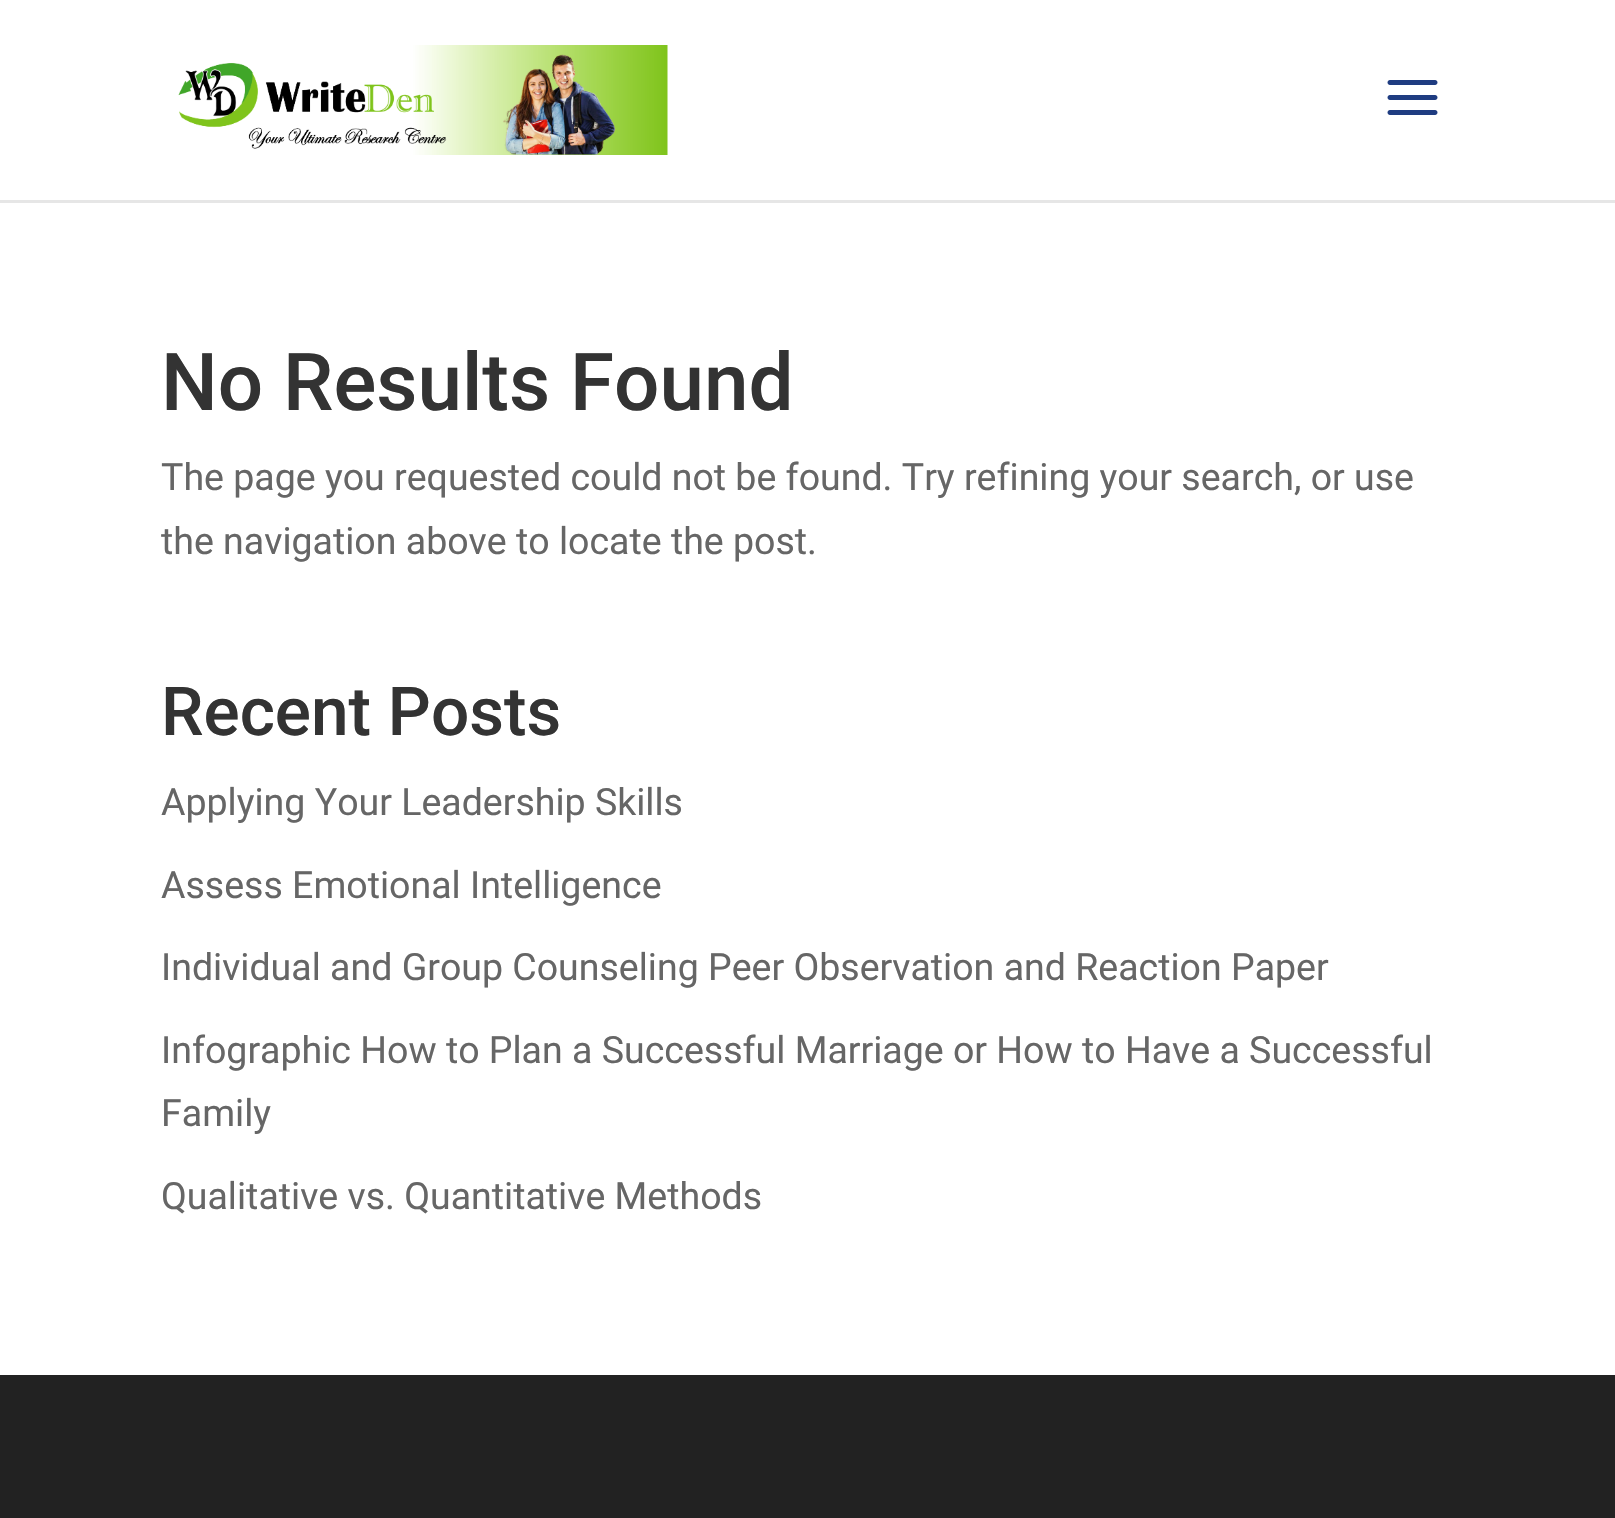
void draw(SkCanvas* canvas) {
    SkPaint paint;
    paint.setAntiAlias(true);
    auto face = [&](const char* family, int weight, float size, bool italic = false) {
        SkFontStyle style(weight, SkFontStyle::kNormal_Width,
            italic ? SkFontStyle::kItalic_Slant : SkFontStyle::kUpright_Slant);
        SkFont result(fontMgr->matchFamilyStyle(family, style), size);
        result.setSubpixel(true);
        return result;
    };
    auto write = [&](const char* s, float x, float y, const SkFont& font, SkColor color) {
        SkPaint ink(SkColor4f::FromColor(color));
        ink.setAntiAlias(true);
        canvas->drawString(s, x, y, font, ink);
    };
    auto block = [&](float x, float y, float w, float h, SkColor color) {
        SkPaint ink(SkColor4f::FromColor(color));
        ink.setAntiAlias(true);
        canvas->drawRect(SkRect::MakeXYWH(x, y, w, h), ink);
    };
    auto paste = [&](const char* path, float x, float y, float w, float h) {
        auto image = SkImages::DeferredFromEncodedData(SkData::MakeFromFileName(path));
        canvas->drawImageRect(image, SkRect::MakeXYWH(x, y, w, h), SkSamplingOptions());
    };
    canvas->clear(SK_ColorWHITE);
    block(0, 200, 1615, 3, SkColorSetRGB(230, 230, 230));
    paste("pic1.png", 178, 45, 490, 110);
    paste("pic2.png", 1387, 80, 51, 35);
    auto kFont1 = face("Roboto", 500, 80);
    write("No Results Found", 161, 410, kFont1, SkColorSetRGB(51, 51, 51));
    auto kFont2 = face("Roboto", 400, 37.5f);
    write("The page you requested could not be found. Try refining your search, or use", 161, 490, kFont2, SkColorSetRGB(102, 102, 102));
    write("the navigation above to locate the post.", 161, 554, kFont2, SkColorSetRGB(102, 102, 102));
    auto kFont3 = face("Roboto", 500, 67.5f);
    write("Recent Posts", 161, 735, kFont3, SkColorSetRGB(51, 51, 51));
    write("Applying Your Leadership Skills", 161, 815, kFont2, SkColorSetRGB(102, 102, 102));
    write("Assess Emotional Intelligence", 161, 898, kFont2, SkColorSetRGB(102, 102, 102));
    write("Individual and Group Counseling Peer Observation and Reaction Paper", 161, 980, kFont2, SkColorSetRGB(102, 102, 102));
    write("Infographic How to Plan a Successful Marriage or How to Have a Successful", 161, 1063, kFont2, SkColorSetRGB(102, 102, 102));
    write("Family", 161, 1126, kFont2, SkColorSetRGB(102, 102, 102));
    write("Qualitative vs. Quantitative Methods", 161, 1209, kFont2, SkColorSetRGB(102, 102, 102));
    block(0, 1375, 1615, 143, SkColorSetRGB(34, 34, 34));
}
